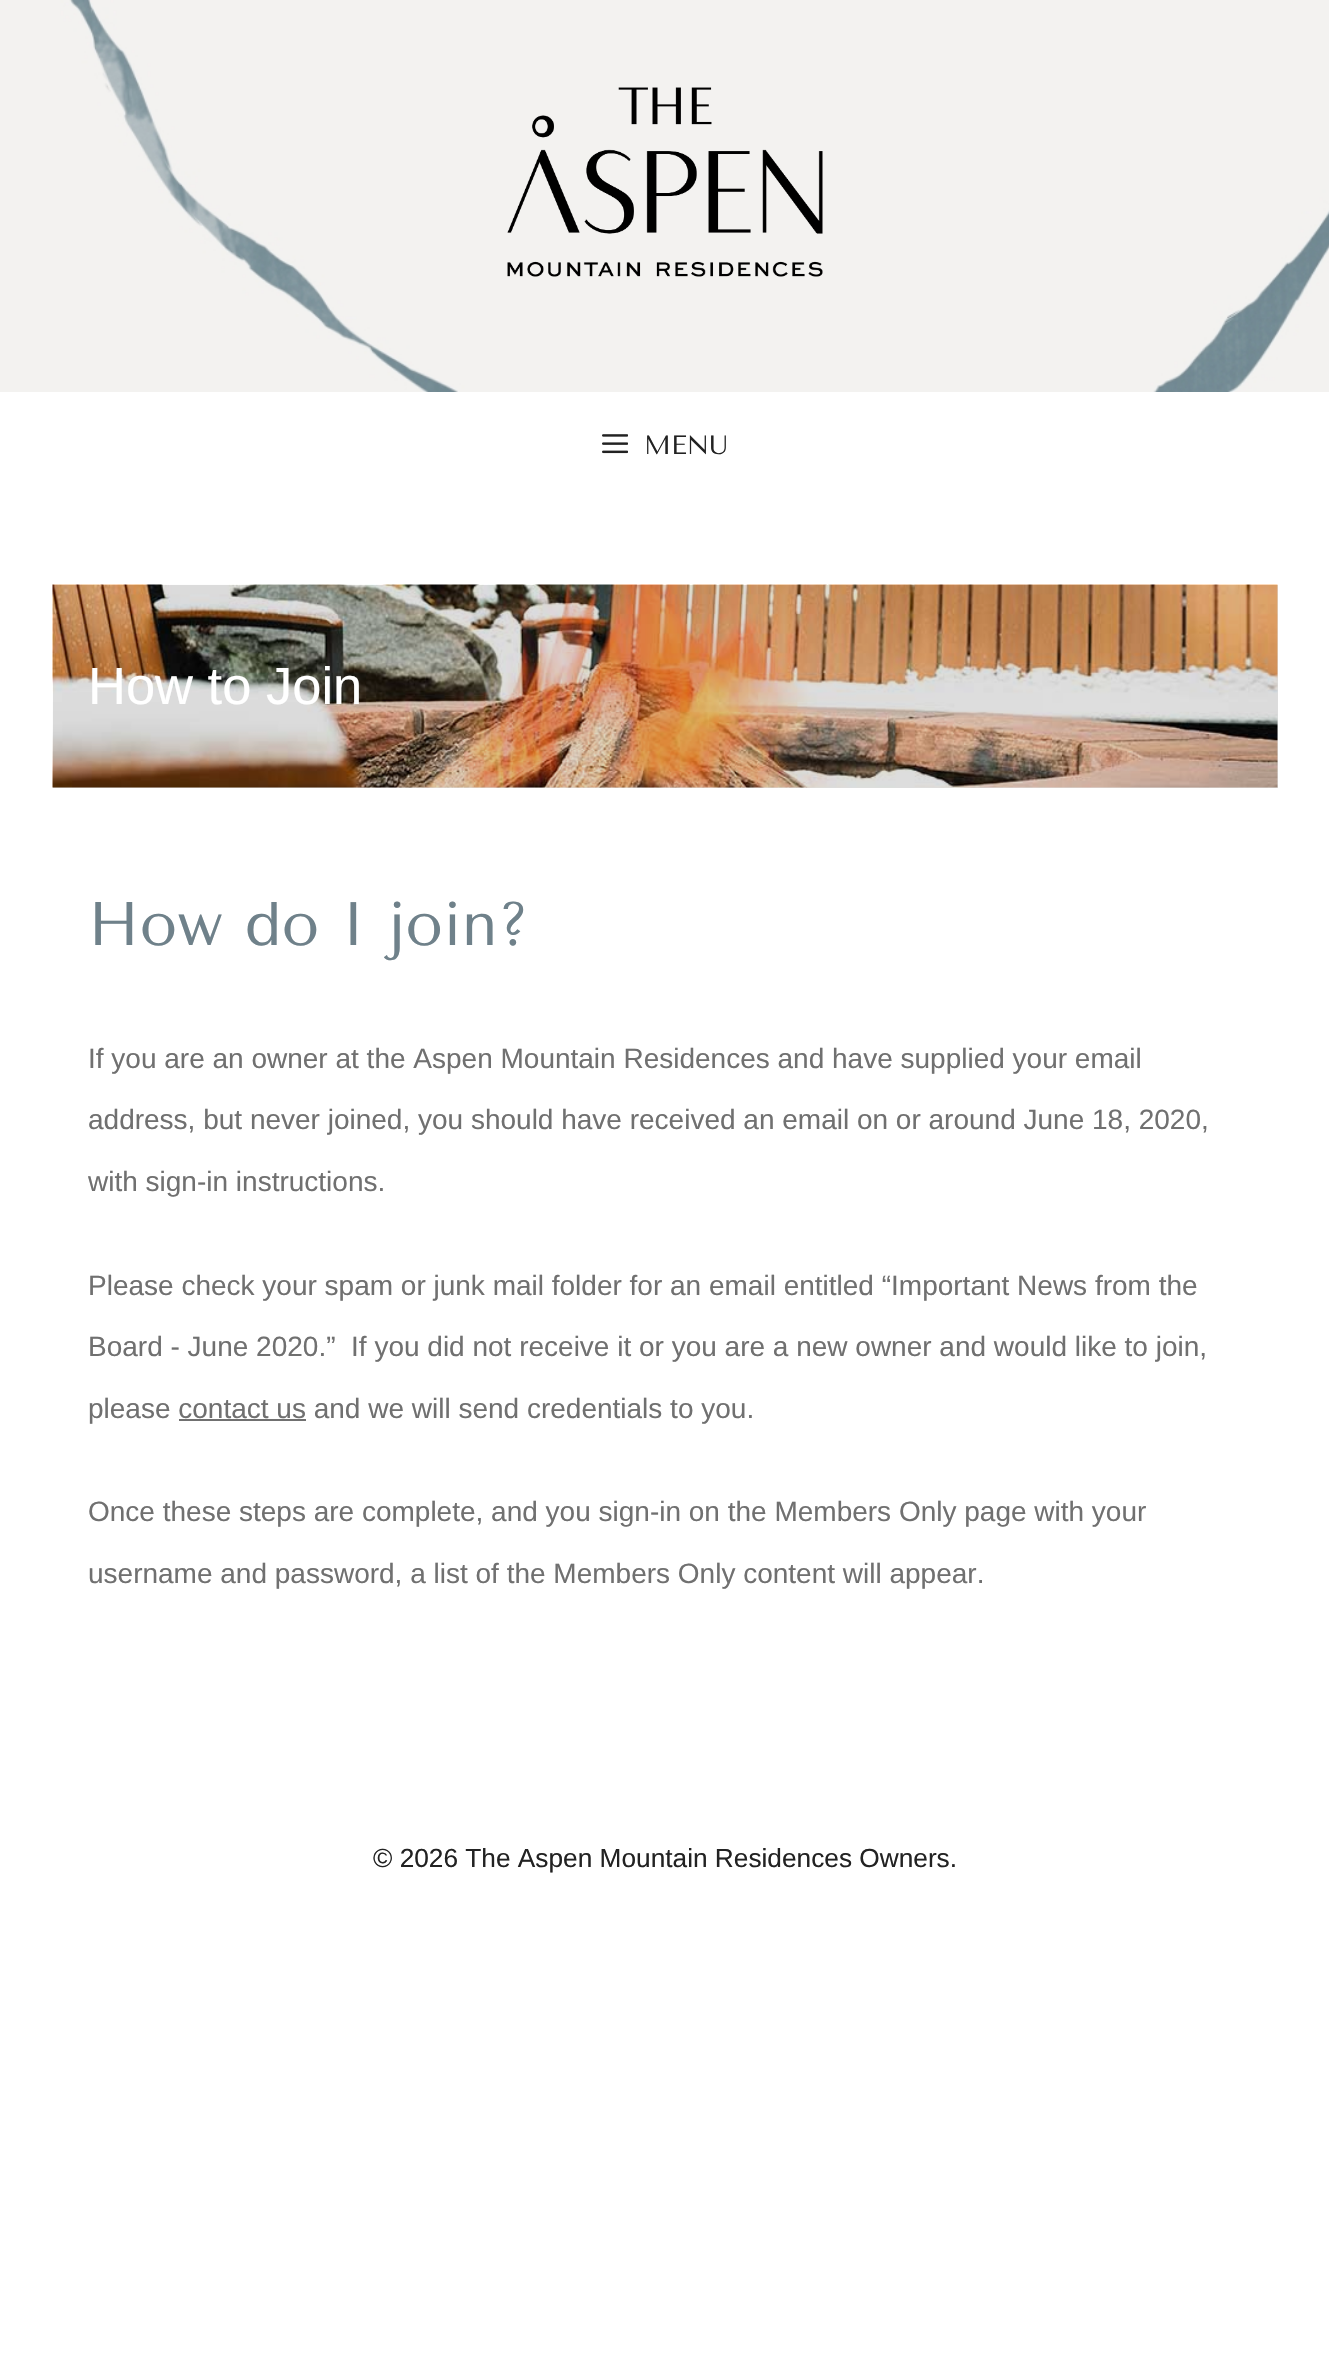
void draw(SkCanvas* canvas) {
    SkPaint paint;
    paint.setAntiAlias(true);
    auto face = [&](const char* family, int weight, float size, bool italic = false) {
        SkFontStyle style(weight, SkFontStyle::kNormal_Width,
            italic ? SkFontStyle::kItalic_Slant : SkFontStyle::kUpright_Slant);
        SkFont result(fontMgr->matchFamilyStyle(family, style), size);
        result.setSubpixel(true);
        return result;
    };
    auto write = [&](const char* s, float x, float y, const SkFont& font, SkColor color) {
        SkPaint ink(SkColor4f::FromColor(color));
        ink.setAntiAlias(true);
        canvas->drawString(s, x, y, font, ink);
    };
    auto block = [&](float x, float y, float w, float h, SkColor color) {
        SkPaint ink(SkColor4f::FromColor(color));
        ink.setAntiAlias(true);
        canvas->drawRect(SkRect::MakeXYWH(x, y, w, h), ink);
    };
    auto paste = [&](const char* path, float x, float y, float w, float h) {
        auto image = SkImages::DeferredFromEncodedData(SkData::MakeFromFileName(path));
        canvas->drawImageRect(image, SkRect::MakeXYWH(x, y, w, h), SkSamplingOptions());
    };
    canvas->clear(SK_ColorWHITE);
    block(53, 585, 1225, 203, SkColorSetRGB(222, 222, 222));
    paste("pic1.png", 0, 0, 1329, 392);
    paste("pic2.png", 507, 87, 316, 190);
    paste("pic3.png", 602, 434, 26, 20);
    auto kFont1 = face("Tenor Sans", 400, 26.25f);
    write("MENU", 644, 454, kFont1, SkColorSetRGB(34, 34, 34));
    paste("pic4.png", 52, 584, 1226, 204);
    auto kFont2 = face("Liberation Sans", 400, 52.5f);
    write("How to Join", 88, 704, kFont2, SK_ColorWHITE);
    auto kFont3 = face("Tenor Sans", 400, 61.25f);
    write("How do I join?", 88, 945, kFont3, SkColorSetRGB(111, 129, 138));
    auto kFont4 = face("Liberation Sans", 400, 28);
    write("If you are an owner at the Aspen Mountain Residences and have supplied your email", 88, 1068, kFont4, SkColorSetRGB(112, 112, 112));
    write("address, but never joined, you should have received an email on or around June 18, 2020,", 88, 1129, kFont4, SkColorSetRGB(112, 112, 112));
    write("with sign-in instructions.", 88, 1191, kFont4, SkColorSetRGB(112, 112, 112));
    write("Please check your spam or junk mail folder for an email entitled “Important News from the", 88, 1295, kFont4, SkColorSetRGB(112, 112, 112));
    write("Board - June 2020.”  If you did not receive it or you are a new owner and would like to join,", 88, 1356, kFont4, SkColorSetRGB(112, 112, 112));
    write("please contact us and we will send credentials to you.", 88, 1418, kFont4, SkColorSetRGB(112, 112, 112));
    block(179, 1419, 127, 2, SkColorSetRGB(112, 112, 112));
    write("Once these steps are complete, and you sign-in on the Members Only page with your", 88, 1521, kFont4, SkColorSetRGB(112, 112, 112));
    write("username and password, a list of the Members Only content will appear.", 88, 1583, kFont4, SkColorSetRGB(112, 112, 112));
    auto kFont5 = face("Liberation Sans", 400, 26.25f);
    write("© 2026 The Aspen Mountain Residences Owners.", 373, 1867, kFont5, SkColorSetRGB(34, 34, 34));
}
